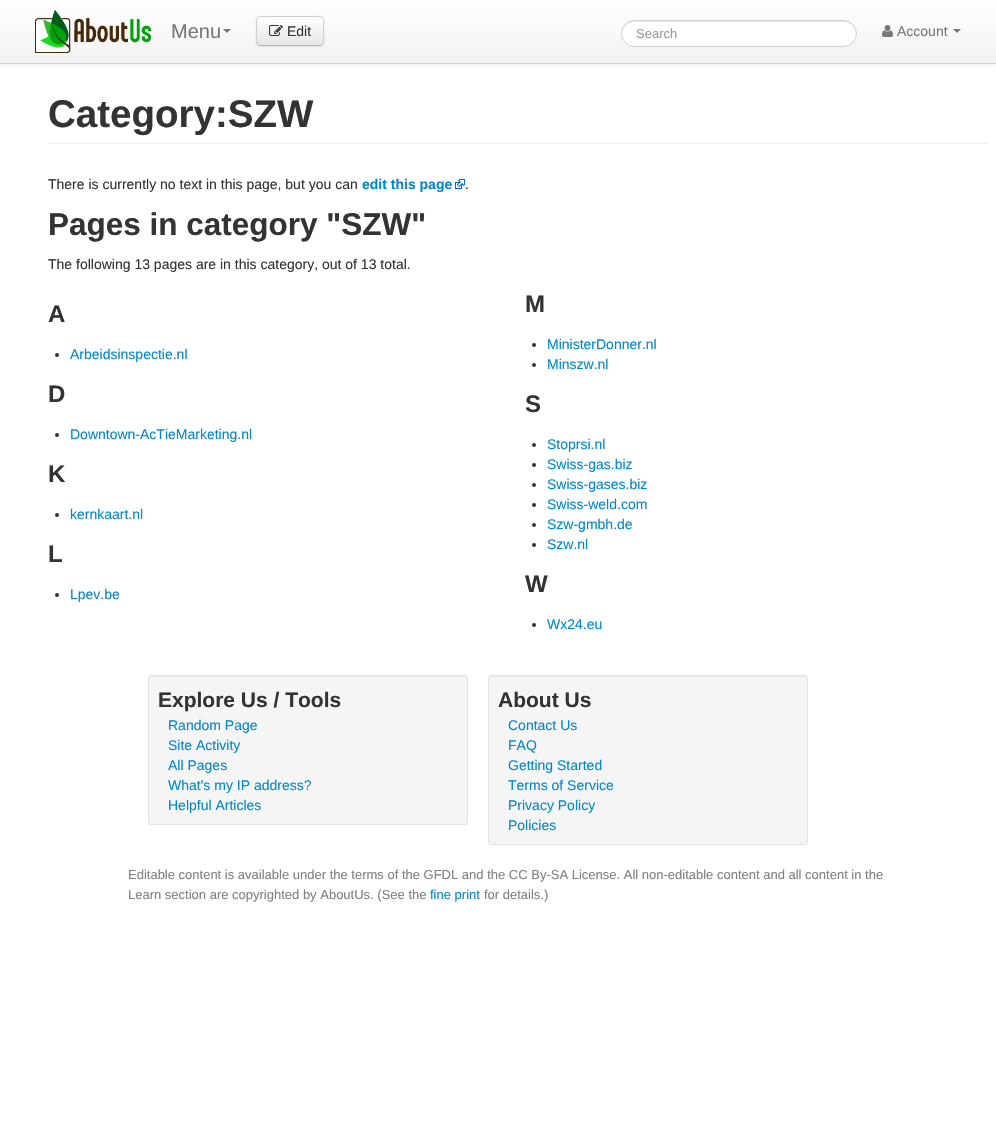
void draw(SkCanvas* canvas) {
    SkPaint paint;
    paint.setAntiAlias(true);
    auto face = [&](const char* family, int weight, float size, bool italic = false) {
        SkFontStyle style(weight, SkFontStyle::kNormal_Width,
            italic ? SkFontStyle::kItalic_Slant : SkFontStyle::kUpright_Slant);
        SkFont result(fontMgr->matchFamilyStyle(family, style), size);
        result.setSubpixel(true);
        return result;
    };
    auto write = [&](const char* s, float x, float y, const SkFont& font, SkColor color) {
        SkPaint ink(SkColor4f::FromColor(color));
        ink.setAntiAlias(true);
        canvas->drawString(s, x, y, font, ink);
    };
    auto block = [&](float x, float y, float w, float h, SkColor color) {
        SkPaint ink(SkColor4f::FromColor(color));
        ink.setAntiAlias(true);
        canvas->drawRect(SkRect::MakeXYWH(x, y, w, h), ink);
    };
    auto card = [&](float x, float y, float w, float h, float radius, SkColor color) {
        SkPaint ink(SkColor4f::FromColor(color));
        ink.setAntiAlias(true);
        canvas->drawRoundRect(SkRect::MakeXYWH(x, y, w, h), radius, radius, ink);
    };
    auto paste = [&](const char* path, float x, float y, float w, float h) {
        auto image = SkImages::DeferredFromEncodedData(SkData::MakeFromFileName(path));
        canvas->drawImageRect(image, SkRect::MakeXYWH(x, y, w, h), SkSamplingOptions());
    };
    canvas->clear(SK_ColorWHITE);
    paint.setColor(SkColorSetARGB(18, 0, 0, 0));
    paint.setMaskFilter(SkMaskFilter::MakeBlur(kNormal_SkBlurStyle, 2));
    canvas->drawRect(SkRect::MakeXYWH(0, 1, 996, 64), paint);
    paint.setMaskFilter(nullptr);
    {
        const SkColor colors[] = {SK_ColorWHITE, SkColorSetRGB(242, 242, 242)};
        const float stops[] = {0, 1};
        const SkPoint ends[] = {{498, 0}, {498, 63}};
        paint.setShader(SkGradientShader::MakeLinear(ends, colors, stops, 2, SkTileMode::kClamp));
        paint.setAlpha(255);
    }
    canvas->drawRect(SkRect::MakeXYWH(0, 0, 996, 63), paint);
    block(0, 63, 996, 1, SkColorSetRGB(212, 212, 212));
    paste("pic1.png", 35, 10, 116, 43);
    auto kFont1 = face("Liberation Sans", 400, 20);
    write("Menu", 171, 38, kFont1, SkColorSetRGB(119, 119, 119));
    paint.setShader(nullptr);
    paint.setColor(SkColorSetRGB(119, 119, 119));
    canvas->drawPath(SkPathBuilder().moveTo(223, 29).lineTo(231, 29).lineTo(227, 33).close().detach(), paint);
    paint.setColor(SkColorSetARGB(13, 0, 0, 0));
    paint.setMaskFilter(SkMaskFilter::MakeBlur(kNormal_SkBlurStyle, 1));
    canvas->drawRoundRect(SkRect::MakeXYWH(256, 17, 68, 30), 4, 4, paint);
    paint.setMaskFilter(nullptr);
    card(256, 16, 68, 30, 4, SkColorSetRGB(245, 245, 245));
    canvas->save();
    canvas->clipPath(SkPathBuilder().moveTo(260, 16).lineTo(320, 16).cubicTo(322, 16, 324, 18, 324, 20).lineTo(324, 42).cubicTo(324, 44, 322, 46, 320, 46).lineTo(260, 46).cubicTo(258, 46, 256, 44, 256, 42).lineTo(256, 20).cubicTo(256, 18, 258, 16, 260, 16).close().detach(), true);
    {
        const SkColor colors[] = {SK_ColorWHITE, SkColorSetRGB(230, 230, 230)};
        const float stops[] = {0, 1};
        const SkPoint ends[] = {{290, 17}, {290, 45}};
        paint.setShader(SkGradientShader::MakeLinear(ends, colors, stops, 2, SkTileMode::kClamp));
        paint.setAlpha(255);
    }
    canvas->drawRect(SkRect::MakeXYWH(256, 17, 68, 28), paint);
    canvas->restore();
    paint.setStyle(SkPaint::kStroke_Style);
    paint.setStrokeWidth(1);
    paint.setShader(nullptr);
    paint.setColor(SkColorSetRGB(179, 179, 179));
    canvas->drawPath(SkPathBuilder().moveTo(322.5f, 44.5f).lineTo(320.5f, 45.5f).lineTo(259.5f, 45.5f).lineTo(257.5f, 44.5f).detach(), paint);
    paint.setColor(SkColorSetRGB(204, 204, 204));
    canvas->drawPath(SkPathBuilder().moveTo(257.5f, 44.5f).cubicTo(255.5f, 42.5f, 256.5f, 34, 256.5f, 31).cubicTo(256.5f, 15, 254, 16.5f, 270, 16.5f).lineTo(310, 16.5f).cubicTo(326, 16.5f, 323.5f, 15, 323.5f, 31).cubicTo(323.5f, 34, 324.5f, 42.5f, 322.5f, 44.5f).detach(), paint);
    paste("pic2.png", 269, 25, 14, 11);
    auto kFont2 = face("Liberation Sans", 400, 14);
    write("Edit", 287, 36, kFont2, SkColorSetRGB(51, 51, 51));
    card(621, 20, 236, 27, 13.5f, SK_ColorWHITE);
    paint.setStyle(SkPaint::kFill_Style);
    paint.setColor(SkColorSetRGB(236, 236, 236));
    canvas->drawPath(SkPathBuilder().moveTo(634, 22).lineTo(844, 22).cubicTo(850, 22, 856, 28, 856, 34).cubicTo(856, 27, 850, 21, 844, 21).lineTo(634, 21).cubicTo(628, 21, 622, 27, 622, 34).cubicTo(622, 28, 628, 22, 634, 22).close().detach(), paint);
    paint.setStyle(SkPaint::kStroke_Style);
    paint.setColor(SkColorSetRGB(204, 204, 204));
    canvas->drawRoundRect(SkRect::MakeXYWH(621.5f, 20.5f, 235, 26), 13, 13, paint);
    auto kFont3 = face("Liberation Sans", 400, 13);
    write("Search", 636, 38, kFont3, SkColorSetRGB(153, 153, 153));
    paste("pic3.png", 882, 25, 11, 12);
    write("Account", 897, 36, kFont2, SkColorSetRGB(119, 119, 119));
    paint.setStyle(SkPaint::kFill_Style);
    paint.setColor(SkColorSetRGB(119, 119, 119));
    canvas->drawPath(SkPathBuilder().moveTo(953, 29).lineTo(961, 29).lineTo(957, 33).close().detach(), paint);
    block(48, 143, 940, 1, SkColorSetRGB(238, 238, 238));
    auto kFont4 = face("Liberation Sans", 700, 38.5f);
    write("Category:SZW", 48, 127, kFont4, SkColorSetRGB(51, 51, 51));
    write("There is currently no text in this page, but you can", 48, 189, kFont2, SkColorSetRGB(51, 51, 51));
    auto kFont5 = face("Liberation Sans", 700, 14);
    write("edit this page", 362, 189, kFont5, SkColorSetRGB(0, 136, 204));
    paste("pic4.png", 455, 179, 10, 10);
    write(".", 465, 189, kFont2, SkColorSetRGB(51, 51, 51));
    auto kFont6 = face("Liberation Sans", 700, 31.5f);
    write("Pages in category \"SZW\"", 48, 235, kFont6, SkColorSetRGB(51, 51, 51));
    write("The following 13 pages are in this category, out of 13 total.", 48, 269, kFont2, SkColorSetRGB(51, 51, 51));
    auto kFont7 = face("Liberation Sans", 700, 24);
    write("A", 48, 322, kFont7, SkColorSetRGB(51, 51, 51));
    paint.setColor(SkColorSetRGB(51, 51, 51));
    canvas->drawCircle(57, 355, 2, paint);
    write("Arbeidsinspectie.nl", 70, 359, kFont2, SkColorSetRGB(0, 136, 204));
    write("M", 525, 312, kFont7, SkColorSetRGB(51, 51, 51));
    canvas->drawCircle(534, 345, 2, paint);
    write("MinisterDonner.nl", 547, 349, kFont2, SkColorSetRGB(0, 136, 204));
    canvas->drawCircle(534, 365, 2, paint);
    write("Minszw.nl", 547, 369, kFont2, SkColorSetRGB(0, 136, 204));
    write("D", 48, 402, kFont7, SkColorSetRGB(51, 51, 51));
    canvas->drawCircle(57, 435, 2, paint);
    write("Downtown-AcTieMarketing.nl", 70, 439, kFont2, SkColorSetRGB(0, 136, 204));
    write("S", 525, 412, kFont7, SkColorSetRGB(51, 51, 51));
    canvas->drawCircle(534, 445, 2, paint);
    write("Stoprsi.nl", 547, 449, kFont2, SkColorSetRGB(0, 136, 204));
    canvas->drawCircle(534, 465, 2, paint);
    write("Swiss-gas.biz", 547, 469, kFont2, SkColorSetRGB(0, 136, 204));
    canvas->drawCircle(534, 485, 2, paint);
    write("Swiss-gases.biz", 547, 489, kFont2, SkColorSetRGB(0, 136, 204));
    canvas->drawCircle(534, 505, 2, paint);
    write("Swiss-weld.com", 547, 509, kFont2, SkColorSetRGB(0, 136, 204));
    canvas->drawCircle(534, 525, 2, paint);
    write("Szw-gmbh.de", 547, 529, kFont2, SkColorSetRGB(0, 136, 204));
    canvas->drawCircle(534, 545, 2, paint);
    write("Szw.nl", 547, 549, kFont2, SkColorSetRGB(0, 136, 204));
    write("K", 48, 482, kFont7, SkColorSetRGB(51, 51, 51));
    canvas->drawCircle(57, 515, 2, paint);
    write("kernkaart.nl", 70, 519, kFont2, SkColorSetRGB(0, 136, 204));
    write("L", 48, 562, kFont7, SkColorSetRGB(51, 51, 51));
    canvas->drawCircle(57, 595, 2, paint);
    write("Lpev.be", 70, 599, kFont2, SkColorSetRGB(0, 136, 204));
    write("W", 525, 592, kFont7, SkColorSetRGB(51, 51, 51));
    canvas->drawCircle(534, 625, 2, paint);
    write("Wx24.eu", 547, 629, kFont2, SkColorSetRGB(0, 136, 204));
    card(148, 675, 320, 150, 3, SkColorSetRGB(245, 245, 245));
    paint.setColor(SkColorSetRGB(233, 233, 233));
    canvas->drawPath(SkPathBuilder().moveTo(151, 677).lineTo(465, 677).cubicTo(466, 677, 467, 678, 467, 679).cubicTo(467, 678, 467, 676, 465, 676).lineTo(150, 676).lineTo(149, 677).lineTo(149, 679).cubicTo(149, 678, 150, 677, 151, 677).close().detach(), paint);
    paint.setStyle(SkPaint::kStroke_Style);
    paint.setColor(SkColorSetRGB(227, 227, 227));
    canvas->drawRoundRect(SkRect::MakeXYWH(148.5f, 675.5f, 319, 149), 2.5f, 2.5f, paint);
    auto kFont8 = face("Liberation Sans", 700, 21);
    write("Explore Us / Tools", 158, 707, kFont8, SkColorSetRGB(51, 51, 51));
    write("Random Page", 168, 730, kFont2, SkColorSetRGB(0, 136, 204));
    write("Site Activity", 168, 750, kFont2, SkColorSetRGB(0, 136, 204));
    write("All Pages", 168, 770, kFont2, SkColorSetRGB(0, 136, 204));
    write("What's my IP address?", 168, 790, kFont2, SkColorSetRGB(0, 136, 204));
    write("Helpful Articles", 168, 810, kFont2, SkColorSetRGB(0, 136, 204));
    card(488, 675, 320, 170, 3, SkColorSetRGB(245, 245, 245));
    paint.setStyle(SkPaint::kFill_Style);
    paint.setColor(SkColorSetRGB(233, 233, 233));
    canvas->drawPath(SkPathBuilder().moveTo(491, 677).lineTo(805, 677).cubicTo(806, 677, 807, 678, 807, 679).cubicTo(807, 678, 807, 676, 805, 676).lineTo(490, 676).lineTo(489, 677).lineTo(489, 679).cubicTo(489, 678, 490, 677, 491, 677).close().detach(), paint);
    paint.setStyle(SkPaint::kStroke_Style);
    paint.setColor(SkColorSetRGB(227, 227, 227));
    canvas->drawRoundRect(SkRect::MakeXYWH(488.5f, 675.5f, 319, 169), 2.5f, 2.5f, paint);
    write("About Us", 498, 707, kFont8, SkColorSetRGB(51, 51, 51));
    write("Contact Us", 508, 730, kFont2, SkColorSetRGB(0, 136, 204));
    write("FAQ", 508, 750, kFont2, SkColorSetRGB(0, 136, 204));
    write("Getting Started", 508, 770, kFont2, SkColorSetRGB(0, 136, 204));
    write("Terms of Service", 508, 790, kFont2, SkColorSetRGB(0, 136, 204));
    write("Privacy Policy", 508, 810, kFont2, SkColorSetRGB(0, 136, 204));
    write("Policies", 508, 830, kFont2, SkColorSetRGB(0, 136, 204));
    write("Editable content is available under the terms of the GFDL and the CC By-SA License. All non-editable content and all content in the", 128, 879, kFont3, SkColorSetRGB(128, 128, 128));
    write("Learn section are copyrighted by AboutUs. (See the", 128, 899, kFont3, SkColorSetRGB(128, 128, 128));
    write("fine print", 430, 899, kFont3, SkColorSetRGB(0, 136, 204));
    write("for details.)", 484, 899, kFont3, SkColorSetRGB(128, 128, 128));
}
